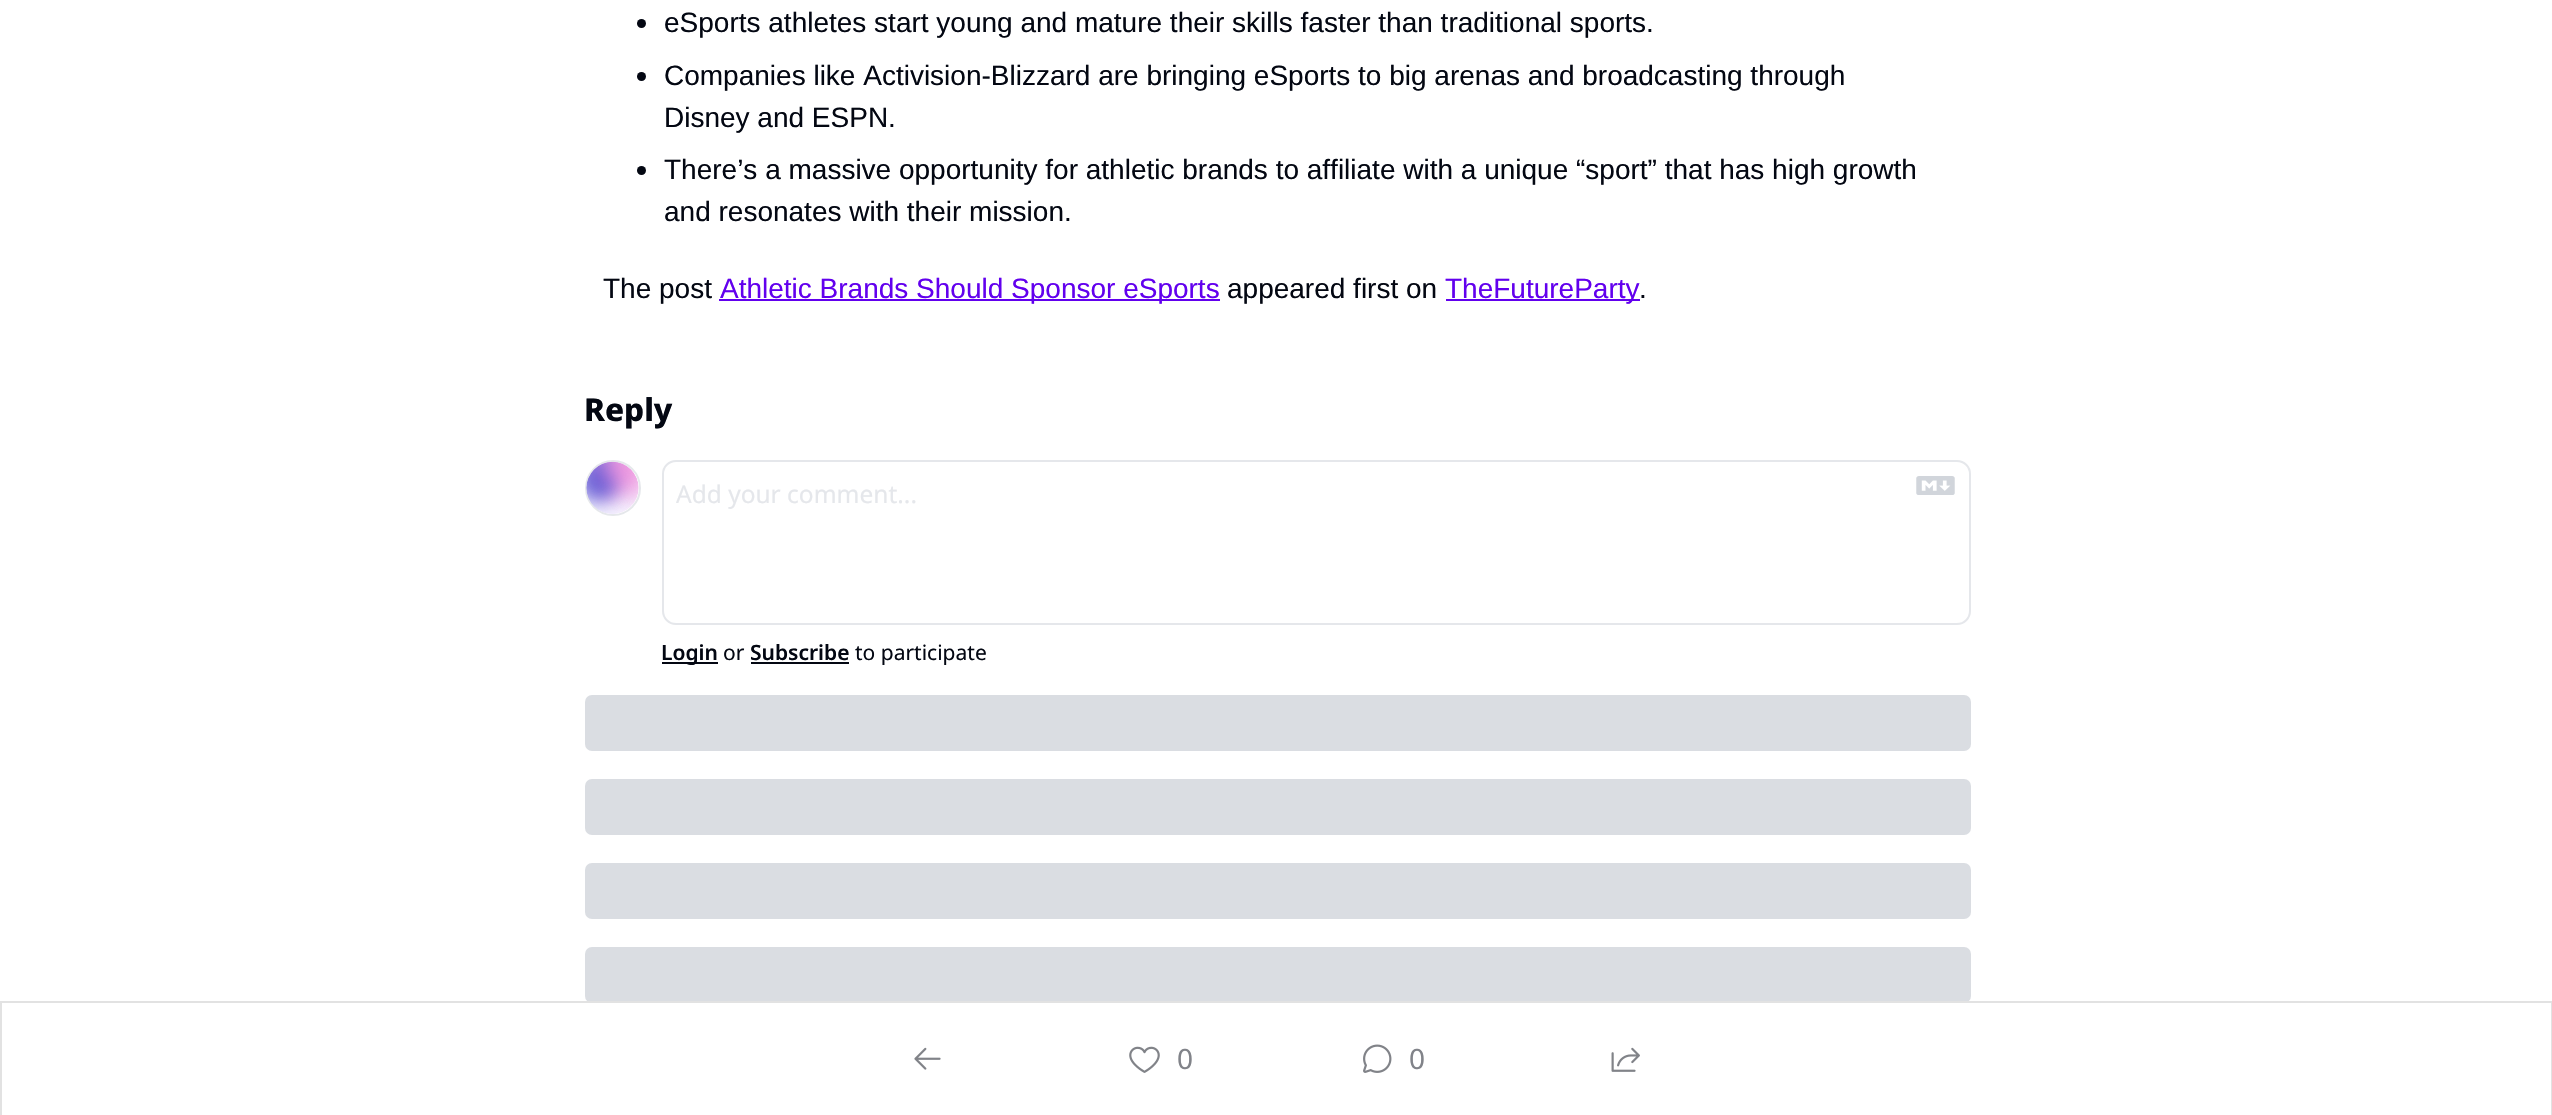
void draw(SkCanvas* canvas) {
    SkPaint paint;
    paint.setAntiAlias(true);
    auto face = [&](const char* family, int weight, float size, bool italic = false) {
        SkFontStyle style(weight, SkFontStyle::kNormal_Width,
            italic ? SkFontStyle::kItalic_Slant : SkFontStyle::kUpright_Slant);
        SkFont result(fontMgr->matchFamilyStyle(family, style), size);
        result.setSubpixel(true);
        return result;
    };
    auto write = [&](const char* s, float x, float y, const SkFont& font, SkColor color) {
        SkPaint ink(SkColor4f::FromColor(color));
        ink.setAntiAlias(true);
        canvas->drawString(s, x, y, font, ink);
    };
    auto block = [&](float x, float y, float w, float h, SkColor color) {
        SkPaint ink(SkColor4f::FromColor(color));
        ink.setAntiAlias(true);
        canvas->drawRect(SkRect::MakeXYWH(x, y, w, h), ink);
    };
    auto card = [&](float x, float y, float w, float h, float radius, SkColor color) {
        SkPaint ink(SkColor4f::FromColor(color));
        ink.setAntiAlias(true);
        canvas->drawRoundRect(SkRect::MakeXYWH(x, y, w, h), radius, radius, ink);
    };
    auto paste = [&](const char* path, float x, float y, float w, float h) {
        auto image = SkImages::DeferredFromEncodedData(SkData::MakeFromFileName(path));
        canvas->drawImageRect(image, SkRect::MakeXYWH(x, y, w, h), SkSamplingOptions());
    };
    canvas->clear(SK_ColorWHITE);
    paint.setColor(SkColorSetRGB(3, 7, 18));
    canvas->drawCircle(641.5f, 23.5f, 4.5f, paint);
    auto kFont1 = face("Liberation Sans", 400, 28);
    write("eSports athletes start young and mature their skills faster than traditional sports.", 664, 32, kFont1, SkColorSetRGB(3, 7, 18));
    canvas->drawCircle(641.5f, 76.5f, 4.5f, paint);
    write("Companies like Activision-Blizzard are bringing eSports to big arenas and broadcasting through", 664, 85, kFont1, SkColorSetRGB(3, 7, 18));
    write("Disney and ESPN.", 664, 127, kFont1, SkColorSetRGB(3, 7, 18));
    canvas->drawCircle(641.5f, 170.5f, 4.5f, paint);
    write("There’s a massive opportunity for athletic brands to affiliate with a unique “sport” that has high growth", 664, 179, kFont1, SkColorSetRGB(3, 7, 18));
    write("and resonates with their mission.", 664, 221, kFont1, SkColorSetRGB(3, 7, 18));
    write("The post", 603, 298, kFont1, SkColorSetRGB(3, 7, 18));
    block(719, 299, 501, 2, SkColorSetRGB(98, 0, 238));
    write("Athletic Brands Should Sponsor eSports", 720, 298, kFont1, SkColorSetRGB(98, 0, 238));
    write("appeared first on", 1227, 298, kFont1, SkColorSetRGB(3, 7, 18));
    block(1446, 299, 194, 2, SkColorSetRGB(98, 0, 238));
    write("TheFutureParty", 1445, 298, kFont1, SkColorSetRGB(98, 0, 238));
    write(".", 1639, 298, kFont1, SkColorSetRGB(3, 7, 18));
    auto kFont2 = face("Noto Sans", 800, 31.5f);
    write("Reply", 584, 421, kFont2, SkColorSetRGB(3, 7, 18));
    paint.setStyle(SkPaint::kStroke_Style);
    paint.setStrokeWidth(2);
    paint.setColor(SkColorSetRGB(229, 231, 235));
    canvas->drawCircle(613, 488, 27, paint);
    paste("pic1.png", 586, 461, 53, 53);
    canvas->drawRoundRect(SkRect::MakeXYWH(663, 461, 1307, 163), 13, 13, paint);
    auto kFont3 = face("Noto Sans", 400, 24.5f);
    write("Add your comment...", 676, 503, kFont3, SkColorSetRGB(229, 231, 235));
    paste("pic2.png", 1916, 476, 39, 19);
    block(662, 662, 56, 2, SkColorSetRGB(3, 7, 18));
    auto kFont4 = face("Noto Sans", 600, 21);
    write("Login", 661, 660, kFont4, SkColorSetRGB(3, 7, 18));
    auto kFont5 = face("Noto Sans", 400, 21);
    write("or", 723, 660, kFont5, SkColorSetRGB(3, 7, 18));
    write("Subscribe", 750, 660, kFont4, SkColorSetRGB(3, 7, 18));
    block(751, 662, 98, 2, SkColorSetRGB(3, 7, 18));
    write("to participate", 855, 660, kFont5, SkColorSetRGB(3, 7, 18));
    card(585, 695, 1386, 56, 7, SkColorSetRGB(218, 221, 226));
    card(585, 779, 1386, 56, 7, SkColorSetRGB(218, 221, 226));
    card(585, 863, 1386, 56, 7, SkColorSetRGB(218, 221, 226));
    card(585, 947, 1386, 56, 7, SkColorSetRGB(218, 221, 226));
    paint.setColor(SkColorSetRGB(226, 226, 226));
    canvas->drawRect(SkRect::MakeXYWH(1, 1002, 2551, 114), paint);
    paste("pic3.png", 914, 1047, 27, 23);
    paste("pic4.png", 1129, 1046, 31, 27);
    auto kFont6 = face("Noto Sans", 400, 28);
    write("0", 1177, 1069, kFont6, SkColorSetRGB(129, 131, 137));
    paste("pic5.png", 1363, 1044, 29, 29);
    write("0", 1409, 1069, kFont6, SkColorSetRGB(129, 131, 137));
    paste("pic6.png", 1611, 1047, 29, 25);
}
